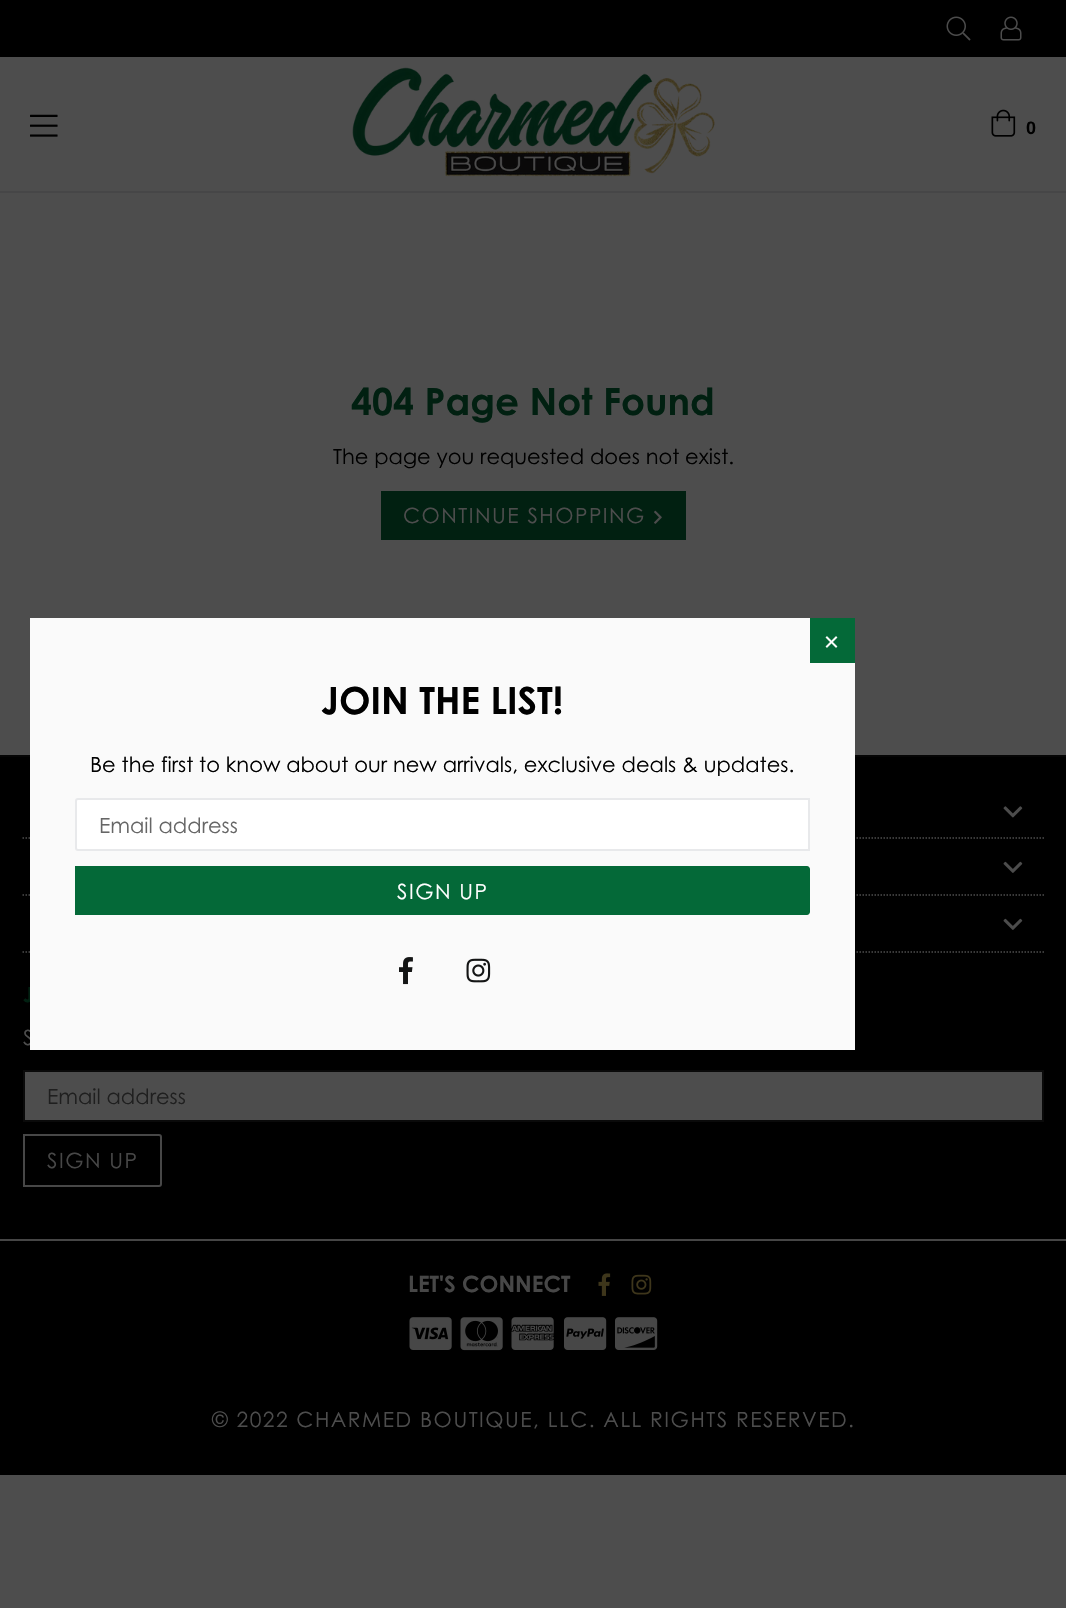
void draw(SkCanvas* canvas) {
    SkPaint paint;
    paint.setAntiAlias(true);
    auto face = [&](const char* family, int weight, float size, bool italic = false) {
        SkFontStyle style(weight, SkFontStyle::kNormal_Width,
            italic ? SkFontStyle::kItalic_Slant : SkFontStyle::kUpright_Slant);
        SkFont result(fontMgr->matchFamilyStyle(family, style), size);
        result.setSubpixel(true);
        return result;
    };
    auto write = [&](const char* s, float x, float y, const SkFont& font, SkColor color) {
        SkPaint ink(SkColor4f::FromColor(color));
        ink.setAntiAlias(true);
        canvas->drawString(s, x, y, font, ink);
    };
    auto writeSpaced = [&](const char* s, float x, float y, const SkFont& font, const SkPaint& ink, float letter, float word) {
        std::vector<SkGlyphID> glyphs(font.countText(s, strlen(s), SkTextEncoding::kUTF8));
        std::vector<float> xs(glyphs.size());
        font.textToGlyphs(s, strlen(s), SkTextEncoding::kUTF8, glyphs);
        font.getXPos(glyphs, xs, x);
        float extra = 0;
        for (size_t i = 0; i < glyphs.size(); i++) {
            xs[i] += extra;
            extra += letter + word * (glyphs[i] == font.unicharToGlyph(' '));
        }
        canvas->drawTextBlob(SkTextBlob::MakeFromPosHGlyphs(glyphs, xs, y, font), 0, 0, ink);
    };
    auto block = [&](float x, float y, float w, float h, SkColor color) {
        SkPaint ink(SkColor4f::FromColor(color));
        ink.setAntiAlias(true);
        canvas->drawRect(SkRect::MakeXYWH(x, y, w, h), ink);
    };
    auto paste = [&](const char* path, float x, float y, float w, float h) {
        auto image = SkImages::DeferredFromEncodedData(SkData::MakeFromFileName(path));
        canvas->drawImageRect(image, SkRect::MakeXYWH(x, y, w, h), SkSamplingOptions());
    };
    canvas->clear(SkColorSetRGB(77, 77, 77));
    block(0, 0, 1066, 57, SK_ColorBLACK);
    paste("pic1.png", 946, 16, 25, 25);
    paste("pic2.png", 1000, 16, 22, 25);
    block(0, 191, 1066, 2, SkColorSetRGB(70, 70, 71));
    paste("pic3.png", 30, 114, 28, 23);
    paste("pic4.png", 352, 67, 363, 110);
    paste("pic5.png", 991, 109, 25, 28);
    auto kFont1 = face("Liberation Sans", 700, 18);
    write("0", 1026, 134, kFont1, SK_ColorBLACK);
    auto kFont2 = face("Century Gothic", 700, 37.5f);
    write("404 Page Not Found", 351, 415, kFont2, SkColorSetRGB(1, 32, 17));
    auto kFont3 = face("Century Gothic", 400, 21);
    write("The page you requested does not exist.", 333, 464, kFont3, SK_ColorBLACK);
    block(381, 491, 305, 49, SkColorSetRGB(1, 32, 17));
    paint.setColor(SkColorSetRGB(77, 77, 77));
    writeSpaced("CONTINUE SHOPPING", 403, 523, kFont3, paint, 1.5f, 0);
    paste("pic6.png", 654, 510, 8, 14);
    block(0, 757, 1066, 718, SK_ColorBLACK);
    block(0, 755, 1066, 2, SkColorSetRGB(5, 5, 5));
    paint.setStyle(SkPaint::kStroke_Style);
    paint.setStrokeWidth(1.5f);
    paint.setPathEffect(SkDashPathEffect::Make({{1.5f, 1.5f}}, 0));
    canvas->drawPath(SkPathBuilder().moveTo(22.5f, 838).lineTo(1044, 838).detach(), paint);
    paint.setPathEffect(nullptr);
    paste("pic7.png", 1003, 806, 20, 12);
    paint.setPathEffect(SkDashPathEffect::Make({{1.5f, 1.5f}}, 0));
    canvas->drawPath(SkPathBuilder().moveTo(22.5f, 895).lineTo(1044, 895).detach(), paint);
    paint.setPathEffect(nullptr);
    paste("pic8.png", 1003, 861, 20, 12);
    paint.setPathEffect(SkDashPathEffect::Make({{1.5f, 1.5f}}, 0));
    canvas->drawPath(SkPathBuilder().moveTo(22.5f, 952).lineTo(1044, 952).detach(), paint);
    paint.setPathEffect(nullptr);
    paste("pic8.png", 1003, 918, 20, 12);
    auto kFont4 = face("Century Gothic", 700, 21);
    write("J", 23, 1002, kFont4, SkColorSetRGB(1, 32, 17));
    write("S", 23, 1045, kFont3, SkColorSetRGB(77, 77, 77));
    paint.setStyle(SkPaint::kFill_Style);
    canvas->drawRect(SkRect::MakeXYWH(24, 1071, 1019, 50), paint);
    paint.setStyle(SkPaint::kStroke_Style);
    paint.setStrokeWidth(2);
    paint.setColor(SkColorSetRGB(10, 10, 10));
    canvas->drawRect(SkRect::MakeXYWH(24, 1071, 1019, 50), paint);
    write("Email address", 47, 1104, kFont3, SkColorSetRGB(31, 31, 31));
    paint.setColor(SkColorSetRGB(71, 71, 71));
    canvas->drawPath(SkPathBuilder().moveTo(24, 1135).lineTo(159, 1135).cubicTo(160, 1135, 161, 1136, 161, 1137).lineTo(161, 1184).cubicTo(161, 1185, 160, 1186, 159, 1186).lineTo(24, 1186).close().detach(), paint);
    paint.setStyle(SkPaint::kFill_Style);
    writeSpaced("SIGN UP", 47, 1168, kFont3, paint, 1.5f, 0);
    block(0, 1239, 1066, 2, SkColorSetRGB(70, 70, 70));
    auto kFont5 = face("Century Gothic", 700, 22.5f);
    write("LET'S CONNECT", 408, 1292, kFont5, SkColorSetRGB(71, 71, 71));
    paste("pic9.png", 598, 1273, 13, 23);
    paste("pic10.png", 631, 1274, 21, 21);
    paste("pic11.png", 409, 1317, 43, 33);
    paste("pic12.png", 460, 1317, 43, 34);
    paste("pic13.png", 511, 1317, 43, 33);
    paste("pic14.png", 564, 1317, 43, 33);
    paste("pic15.png", 615, 1317, 43, 33);
    paint.setColor(SkColorSetRGB(77, 77, 77));
    writeSpaced("© 2022 CHARMED BOUTIQUE, LLC. ALL RIGHTS RESERVED.", 212, 1427, kFont3, paint, 1.5f, 0);
    block(30, 618, 825, 432, SkColorSetRGB(250, 250, 250));
    block(810, 618, 45, 45, SkColorSetRGB(4, 105, 56));
    auto kFont6 = face("Century Gothic", 400, 28);
    paint.setColor(SK_ColorWHITE);
    writeSpaced("×", 823, 652, kFont6, paint, 1.5f, 0);
    write("JOIN THE LIST!", 321, 714, kFont2, SK_ColorBLACK);
    write("Be the first to know about our new arrivals, exclusive deals & updates.", 90, 772, kFont3, SK_ColorBLACK);
    canvas->drawPath(SkPathBuilder().moveTo(78, 799).lineTo(809, 799).lineTo(809, 850).lineTo(78, 850).cubicTo(77, 850, 76, 849, 76, 848).lineTo(76, 801).cubicTo(76, 800, 77, 799, 78, 799).close().detach(), paint);
    paint.setStyle(SkPaint::kStroke_Style);
    paint.setColor(SkColorSetRGB(232, 233, 235));
    canvas->drawPath(SkPathBuilder().moveTo(78, 799).lineTo(809, 799).lineTo(809, 850).lineTo(78, 850).cubicTo(77, 850, 76, 849, 76, 848).lineTo(76, 801).cubicTo(76, 800, 77, 799, 78, 799).close().detach(), paint);
    write("Email address", 99, 833, kFont3, SkColorSetRGB(102, 102, 102));
    paint.setStyle(SkPaint::kFill_Style);
    paint.setColor(SkColorSetRGB(4, 105, 56));
    canvas->drawPath(SkPathBuilder().moveTo(75, 866).lineTo(807, 866).cubicTo(808.5f, 866, 810, 867.5f, 810, 869).lineTo(810, 912).cubicTo(810, 913.5f, 808.5f, 915, 807, 915).lineTo(75, 915).close().detach(), paint);
    paint.setColor(SK_ColorWHITE);
    writeSpaced("SIGN UP", 397, 899, kFont3, paint, 1.5f, 0);
    paste("pic16.png", 399, 957, 14, 28);
    paste("pic17.png", 466, 958, 25, 25);
}
